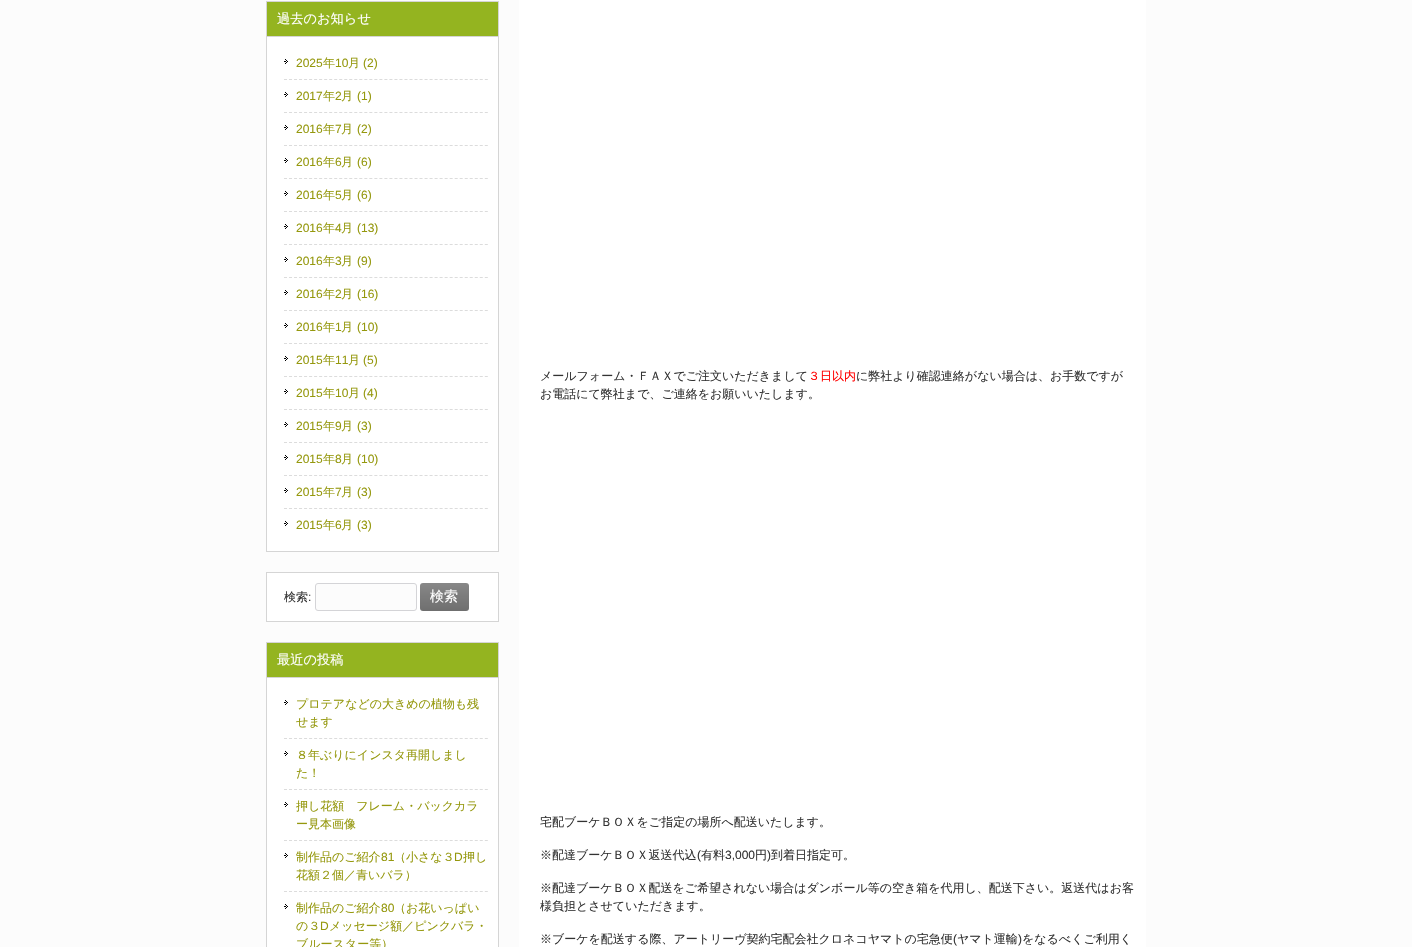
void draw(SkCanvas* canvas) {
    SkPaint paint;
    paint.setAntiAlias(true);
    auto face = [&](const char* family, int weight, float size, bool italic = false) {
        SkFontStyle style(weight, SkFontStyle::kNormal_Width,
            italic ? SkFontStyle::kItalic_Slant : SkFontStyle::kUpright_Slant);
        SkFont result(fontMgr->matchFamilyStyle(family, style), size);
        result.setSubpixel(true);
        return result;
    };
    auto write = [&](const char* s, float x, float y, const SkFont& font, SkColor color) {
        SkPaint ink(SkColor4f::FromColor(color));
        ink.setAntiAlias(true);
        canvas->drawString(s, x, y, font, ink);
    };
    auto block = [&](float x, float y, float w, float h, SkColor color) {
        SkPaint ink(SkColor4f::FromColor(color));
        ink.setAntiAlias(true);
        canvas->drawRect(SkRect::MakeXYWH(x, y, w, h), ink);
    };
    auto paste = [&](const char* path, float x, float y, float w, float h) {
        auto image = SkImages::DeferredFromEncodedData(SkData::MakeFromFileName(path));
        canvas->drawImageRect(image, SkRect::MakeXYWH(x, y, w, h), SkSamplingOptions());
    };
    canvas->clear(SkColorSetRGB(252, 252, 252));
    block(267, 2, 231, 34, SkColorSetRGB(148, 180, 32));
    block(266, 1, 233, 1, SkColorSetRGB(213, 213, 213));
    block(498, 1, 1, 35, SkColorSetRGB(213, 213, 213));
    block(266, 1, 1, 35, SkColorSetRGB(213, 213, 213));
    auto kFont1 = face("WenQuanYi Zen Hei", 500, 13.25f);
    write("過去のお知らせ", 277, 23, kFont1, SK_ColorWHITE);
    paint.setColor(SK_ColorWHITE);
    canvas->drawRect(SkRect::MakeXYWH(266.5f, 36.5f, 232, 515), paint);
    paint.setStyle(SkPaint::kStroke_Style);
    paint.setStrokeWidth(1);
    paint.setColor(SkColorSetRGB(213, 213, 213));
    canvas->drawRect(SkRect::MakeXYWH(266.5f, 36.5f, 232, 515), paint);
    paste("pic1.png", 284, 59, 4, 5);
    paint.setColor(SkColorSetRGB(220, 220, 220));
    paint.setPathEffect(SkDashPathEffect::Make({{3, 2.02f}}, 0));
    canvas->drawPath(SkPathBuilder().moveTo(284, 79.5f).lineTo(488, 79.5f).detach(), paint);
    paint.setPathEffect(nullptr);
    auto kFont2 = face("Liberation Sans", 400, 12);
    write("2025", 296, 67, kFont2, SkColorSetRGB(149, 152, 13));
    auto kFont3 = face("WenQuanYi Zen Hei", 500, 12);
    write("年", 323, 67, kFont3, SkColorSetRGB(149, 152, 13));
    write("10", 335, 67, kFont2, SkColorSetRGB(149, 152, 13));
    write("月", 348, 67, kFont3, SkColorSetRGB(149, 152, 13));
    write("(2)", 363, 67, kFont2, SkColorSetRGB(149, 152, 13));
    paste("pic1.png", 284, 92, 4, 5);
    paint.setPathEffect(SkDashPathEffect::Make({{3, 2.02f}}, 0));
    canvas->drawPath(SkPathBuilder().moveTo(284, 112.5f).lineTo(488, 112.5f).detach(), paint);
    paint.setPathEffect(nullptr);
    write("2017", 296, 100, kFont2, SkColorSetRGB(149, 152, 13));
    write("年", 323, 100, kFont3, SkColorSetRGB(149, 152, 13));
    write("2", 335, 100, kFont2, SkColorSetRGB(149, 152, 13));
    write("月", 341, 100, kFont3, SkColorSetRGB(149, 152, 13));
    write("(1)", 357, 100, kFont2, SkColorSetRGB(149, 152, 13));
    paste("pic1.png", 284, 125, 4, 5);
    paint.setPathEffect(SkDashPathEffect::Make({{3, 2.02f}}, 0));
    canvas->drawPath(SkPathBuilder().moveTo(284, 145.5f).lineTo(488, 145.5f).detach(), paint);
    paint.setPathEffect(nullptr);
    write("2016", 296, 133, kFont2, SkColorSetRGB(149, 152, 13));
    write("年", 323, 133, kFont3, SkColorSetRGB(149, 152, 13));
    write("7", 335, 133, kFont2, SkColorSetRGB(149, 152, 13));
    write("月", 341, 133, kFont3, SkColorSetRGB(149, 152, 13));
    write("(2)", 357, 133, kFont2, SkColorSetRGB(149, 152, 13));
    paste("pic1.png", 284, 158, 4, 5);
    paint.setPathEffect(SkDashPathEffect::Make({{3, 2.02f}}, 0));
    canvas->drawPath(SkPathBuilder().moveTo(284, 178.5f).lineTo(488, 178.5f).detach(), paint);
    paint.setPathEffect(nullptr);
    write("2016", 296, 166, kFont2, SkColorSetRGB(149, 152, 13));
    write("年", 323, 166, kFont3, SkColorSetRGB(149, 152, 13));
    write("6", 335, 166, kFont2, SkColorSetRGB(149, 152, 13));
    write("月", 341, 166, kFont3, SkColorSetRGB(149, 152, 13));
    write("(6)", 357, 166, kFont2, SkColorSetRGB(149, 152, 13));
    paste("pic1.png", 284, 191, 4, 5);
    paint.setPathEffect(SkDashPathEffect::Make({{3, 2.02f}}, 0));
    canvas->drawPath(SkPathBuilder().moveTo(284, 211.5f).lineTo(488, 211.5f).detach(), paint);
    paint.setPathEffect(nullptr);
    write("2016", 296, 199, kFont2, SkColorSetRGB(149, 152, 13));
    write("年", 323, 199, kFont3, SkColorSetRGB(149, 152, 13));
    write("5", 335, 199, kFont2, SkColorSetRGB(149, 152, 13));
    write("月", 341, 199, kFont3, SkColorSetRGB(149, 152, 13));
    write("(6)", 357, 199, kFont2, SkColorSetRGB(149, 152, 13));
    paste("pic1.png", 284, 224, 4, 5);
    paint.setPathEffect(SkDashPathEffect::Make({{3, 2.02f}}, 0));
    canvas->drawPath(SkPathBuilder().moveTo(284, 244.5f).lineTo(488, 244.5f).detach(), paint);
    paint.setPathEffect(nullptr);
    write("2016", 296, 232, kFont2, SkColorSetRGB(149, 152, 13));
    write("年", 323, 232, kFont3, SkColorSetRGB(149, 152, 13));
    write("4", 335, 232, kFont2, SkColorSetRGB(149, 152, 13));
    write("月", 341, 232, kFont3, SkColorSetRGB(149, 152, 13));
    write("(13)", 357, 232, kFont2, SkColorSetRGB(149, 152, 13));
    paste("pic1.png", 284, 257, 4, 5);
    paint.setPathEffect(SkDashPathEffect::Make({{3, 2.02f}}, 0));
    canvas->drawPath(SkPathBuilder().moveTo(284, 277.5f).lineTo(488, 277.5f).detach(), paint);
    paint.setPathEffect(nullptr);
    write("2016", 296, 265, kFont2, SkColorSetRGB(149, 152, 13));
    write("年", 323, 265, kFont3, SkColorSetRGB(149, 152, 13));
    write("3", 335, 265, kFont2, SkColorSetRGB(149, 152, 13));
    write("月", 341, 265, kFont3, SkColorSetRGB(149, 152, 13));
    write("(9)", 357, 265, kFont2, SkColorSetRGB(149, 152, 13));
    paste("pic1.png", 284, 290, 4, 5);
    paint.setPathEffect(SkDashPathEffect::Make({{3, 2.02f}}, 0));
    canvas->drawPath(SkPathBuilder().moveTo(284, 310.5f).lineTo(488, 310.5f).detach(), paint);
    paint.setPathEffect(nullptr);
    write("2016", 296, 298, kFont2, SkColorSetRGB(149, 152, 13));
    write("年", 323, 298, kFont3, SkColorSetRGB(149, 152, 13));
    write("2", 335, 298, kFont2, SkColorSetRGB(149, 152, 13));
    write("月", 341, 298, kFont3, SkColorSetRGB(149, 152, 13));
    write("(16)", 357, 298, kFont2, SkColorSetRGB(149, 152, 13));
    paste("pic1.png", 284, 323, 4, 5);
    paint.setPathEffect(SkDashPathEffect::Make({{3, 2.02f}}, 0));
    canvas->drawPath(SkPathBuilder().moveTo(284, 343.5f).lineTo(488, 343.5f).detach(), paint);
    paint.setPathEffect(nullptr);
    write("2016", 296, 331, kFont2, SkColorSetRGB(149, 152, 13));
    write("年", 323, 331, kFont3, SkColorSetRGB(149, 152, 13));
    write("1", 335, 331, kFont2, SkColorSetRGB(149, 152, 13));
    write("月", 341, 331, kFont3, SkColorSetRGB(149, 152, 13));
    write("(10)", 357, 331, kFont2, SkColorSetRGB(149, 152, 13));
    paste("pic1.png", 284, 356, 4, 5);
    paint.setPathEffect(SkDashPathEffect::Make({{3, 2.02f}}, 0));
    canvas->drawPath(SkPathBuilder().moveTo(284, 376.5f).lineTo(488, 376.5f).detach(), paint);
    paint.setPathEffect(nullptr);
    write("2015", 296, 364, kFont2, SkColorSetRGB(149, 152, 13));
    write("年", 323, 364, kFont3, SkColorSetRGB(149, 152, 13));
    write("11", 335, 364, kFont2, SkColorSetRGB(149, 152, 13));
    write("月", 348, 364, kFont3, SkColorSetRGB(149, 152, 13));
    write("(5)", 363, 364, kFont2, SkColorSetRGB(149, 152, 13));
    paste("pic1.png", 284, 389, 4, 5);
    paint.setPathEffect(SkDashPathEffect::Make({{3, 2.02f}}, 0));
    canvas->drawPath(SkPathBuilder().moveTo(284, 409.5f).lineTo(488, 409.5f).detach(), paint);
    paint.setPathEffect(nullptr);
    write("2015", 296, 397, kFont2, SkColorSetRGB(149, 152, 13));
    write("年", 323, 397, kFont3, SkColorSetRGB(149, 152, 13));
    write("10", 335, 397, kFont2, SkColorSetRGB(149, 152, 13));
    write("月", 348, 397, kFont3, SkColorSetRGB(149, 152, 13));
    write("(4)", 363, 397, kFont2, SkColorSetRGB(149, 152, 13));
    paste("pic1.png", 284, 422, 4, 5);
    paint.setPathEffect(SkDashPathEffect::Make({{3, 2.02f}}, 0));
    canvas->drawPath(SkPathBuilder().moveTo(284, 442.5f).lineTo(488, 442.5f).detach(), paint);
    paint.setPathEffect(nullptr);
    write("2015", 296, 430, kFont2, SkColorSetRGB(149, 152, 13));
    write("年", 323, 430, kFont3, SkColorSetRGB(149, 152, 13));
    write("9", 335, 430, kFont2, SkColorSetRGB(149, 152, 13));
    write("月", 341, 430, kFont3, SkColorSetRGB(149, 152, 13));
    write("(3)", 357, 430, kFont2, SkColorSetRGB(149, 152, 13));
    paste("pic1.png", 284, 455, 4, 5);
    paint.setPathEffect(SkDashPathEffect::Make({{3, 2.02f}}, 0));
    canvas->drawPath(SkPathBuilder().moveTo(284, 475.5f).lineTo(488, 475.5f).detach(), paint);
    paint.setPathEffect(nullptr);
    write("2015", 296, 463, kFont2, SkColorSetRGB(149, 152, 13));
    write("年", 323, 463, kFont3, SkColorSetRGB(149, 152, 13));
    write("8", 335, 463, kFont2, SkColorSetRGB(149, 152, 13));
    write("月", 341, 463, kFont3, SkColorSetRGB(149, 152, 13));
    write("(10)", 357, 463, kFont2, SkColorSetRGB(149, 152, 13));
    paste("pic1.png", 284, 488, 4, 5);
    paint.setPathEffect(SkDashPathEffect::Make({{3, 2.02f}}, 0));
    canvas->drawPath(SkPathBuilder().moveTo(284, 508.5f).lineTo(488, 508.5f).detach(), paint);
    paint.setPathEffect(nullptr);
    write("2015", 296, 496, kFont2, SkColorSetRGB(149, 152, 13));
    write("年", 323, 496, kFont3, SkColorSetRGB(149, 152, 13));
    write("7", 335, 496, kFont2, SkColorSetRGB(149, 152, 13));
    write("月", 341, 496, kFont3, SkColorSetRGB(149, 152, 13));
    write("(3)", 357, 496, kFont2, SkColorSetRGB(149, 152, 13));
    paste("pic1.png", 284, 521, 4, 5);
    write("2015", 296, 529, kFont2, SkColorSetRGB(149, 152, 13));
    write("年", 323, 529, kFont3, SkColorSetRGB(149, 152, 13));
    write("6", 335, 529, kFont2, SkColorSetRGB(149, 152, 13));
    write("月", 341, 529, kFont3, SkColorSetRGB(149, 152, 13));
    write("(3)", 357, 529, kFont2, SkColorSetRGB(149, 152, 13));
    paint.setStyle(SkPaint::kFill_Style);
    paint.setColor(SK_ColorWHITE);
    canvas->drawRect(SkRect::MakeXYWH(266.5f, 572.5f, 232, 49), paint);
    paint.setStyle(SkPaint::kStroke_Style);
    paint.setColor(SkColorSetRGB(213, 213, 213));
    canvas->drawRect(SkRect::MakeXYWH(266.5f, 572.5f, 232, 49), paint);
    write("検索", 284, 601, kFont3, SkColorSetRGB(51, 51, 51));
    write(":", 308, 601, kFont2, SkColorSetRGB(51, 51, 51));
    paint.setStyle(SkPaint::kFill_Style);
    paint.setColor(SkColorSetRGB(252, 252, 252));
    canvas->drawRoundRect(SkRect::MakeXYWH(315.5f, 583.5f, 101, 27), 2.5f, 2.5f, paint);
    paint.setStyle(SkPaint::kStroke_Style);
    paint.setColor(SkColorSetRGB(212, 212, 215));
    canvas->drawRoundRect(SkRect::MakeXYWH(315.5f, 583.5f, 101, 27), 2.5f, 2.5f, paint);
    paint.setStyle(SkPaint::kFill_Style);
    {
        const SkColor colors[] = {SkColorSetRGB(135, 135, 135), SkColorSetRGB(111, 111, 111)};
        const float stops[] = {0, 1};
        const SkPoint ends[] = {{445, 583}, {445, 611}};
        paint.setShader(SkGradientShader::MakeLinear(ends, colors, stops, 2, SkTileMode::kClamp));
        paint.setAlpha(255);
    }
    canvas->drawRoundRect(SkRect::MakeXYWH(420, 583, 49, 28), 3, 3, paint);
    auto kFont4 = face("WenQuanYi Zen Hei", 500, 14);
    write("検索", 430, 601, kFont4, SK_ColorWHITE);
    block(267, 643, 231, 34, SkColorSetRGB(148, 180, 32));
    block(266, 642, 233, 1, SkColorSetRGB(213, 213, 213));
    block(498, 642, 1, 35, SkColorSetRGB(213, 213, 213));
    block(266, 642, 1, 35, SkColorSetRGB(213, 213, 213));
    write("最近の投稿", 277, 664, kFont1, SK_ColorWHITE);
    paint.setShader(nullptr);
    paint.setColor(SK_ColorWHITE);
    canvas->drawRect(SkRect::MakeXYWH(266.5f, 677.5f, 232, 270), paint);
    paint.setStyle(SkPaint::kStroke_Style);
    paint.setColor(SkColorSetRGB(213, 213, 213));
    canvas->drawRect(SkRect::MakeXYWH(266.5f, 677.5f, 232, 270), paint);
    paste("pic1.png", 284, 700, 4, 5);
    paint.setColor(SkColorSetRGB(220, 220, 220));
    paint.setPathEffect(SkDashPathEffect::Make({{3, 2.02f}}, 0));
    canvas->drawPath(SkPathBuilder().moveTo(284, 738.5f).lineTo(488, 738.5f).detach(), paint);
    paint.setPathEffect(nullptr);
    write("プロテアなどの大きめの植物も残", 296, 708, kFont3, SkColorSetRGB(149, 152, 13));
    write("せます", 296, 726, kFont3, SkColorSetRGB(149, 152, 13));
    paste("pic1.png", 284, 751, 4, 5);
    paint.setPathEffect(SkDashPathEffect::Make({{3, 2.02f}}, 0));
    canvas->drawPath(SkPathBuilder().moveTo(284, 789.5f).lineTo(488, 789.5f).detach(), paint);
    paint.setPathEffect(nullptr);
    write("８年ぶりにインスタ再開しまし", 296, 759, kFont3, SkColorSetRGB(149, 152, 13));
    write("た！", 296, 777, kFont3, SkColorSetRGB(149, 152, 13));
    paste("pic1.png", 284, 802, 4, 5);
    paint.setPathEffect(SkDashPathEffect::Make({{3, 2.02f}}, 0));
    canvas->drawPath(SkPathBuilder().moveTo(284, 840.5f).lineTo(488, 840.5f).detach(), paint);
    paint.setPathEffect(nullptr);
    write("押し花額　フレーム・バックカラ", 296, 810, kFont3, SkColorSetRGB(149, 152, 13));
    write("ー見本画像", 296, 828, kFont3, SkColorSetRGB(149, 152, 13));
    paste("pic1.png", 284, 853, 4, 5);
    paint.setPathEffect(SkDashPathEffect::Make({{3, 2.02f}}, 0));
    canvas->drawPath(SkPathBuilder().moveTo(284, 891.5f).lineTo(488, 891.5f).detach(), paint);
    paint.setPathEffect(nullptr);
    write("制作品のご紹介", 296, 861, kFont3, SkColorSetRGB(149, 152, 13));
    write("81", 381, 861, kFont2, SkColorSetRGB(149, 152, 13));
    write("（小さな３", 394, 861, kFont3, SkColorSetRGB(149, 152, 13));
    write("D", 454, 861, kFont2, SkColorSetRGB(149, 152, 13));
    write("押し", 463, 861, kFont3, SkColorSetRGB(149, 152, 13));
    write("花額２個／青いバラ）", 296, 879, kFont3, SkColorSetRGB(149, 152, 13));
    paste("pic1.png", 284, 904, 4, 5);
    write("制作品のご紹介", 296, 912, kFont3, SkColorSetRGB(149, 152, 13));
    write("80", 381, 912, kFont2, SkColorSetRGB(149, 152, 13));
    write("（お花いっぱい", 394, 912, kFont3, SkColorSetRGB(149, 152, 13));
    write("の３", 296, 930, kFont3, SkColorSetRGB(149, 152, 13));
    write("D", 320, 930, kFont2, SkColorSetRGB(149, 152, 13));
    write("メッセージ額／ピンクバラ・", 329, 930, kFont3, SkColorSetRGB(149, 152, 13));
    write("ブルースター等）", 296, 948, kFont3, SkColorSetRGB(149, 152, 13));
    block(519, 0, 627, 947, SK_ColorWHITE);
    write("メールフォーム・ＦＡＸでご注文いただきまして", 540, 380, kFont3, SkColorSetRGB(51, 51, 51));
    write("３日以内", 808, 380, kFont3, SkColorSetRGB(255, 0, 0));
    write("に弊社より確認連絡がない場合は、お手数ですが", 856, 380, kFont3, SkColorSetRGB(51, 51, 51));
    write("お電話にて弊社まで、ご連絡をお願いいたします。", 540, 398, kFont3, SkColorSetRGB(51, 51, 51));
    write("宅配ブーケＢＯＸをご指定の場所へ配送いたします。", 540, 826, kFont3, SkColorSetRGB(51, 51, 51));
    write("※配達ブーケＢＯＸ返送代込", 540, 859, kFont3, SkColorSetRGB(51, 51, 51));
    write("(", 697, 859, kFont2, SkColorSetRGB(51, 51, 51));
    write("有料", 701, 859, kFont3, SkColorSetRGB(51, 51, 51));
    write("3,000", 725, 859, kFont2, SkColorSetRGB(51, 51, 51));
    write("円", 755, 859, kFont3, SkColorSetRGB(51, 51, 51));
    write(")", 767, 859, kFont2, SkColorSetRGB(51, 51, 51));
    write("到着日指定可。", 771, 859, kFont3, SkColorSetRGB(51, 51, 51));
    write("※配達ブーケＢＯＸ配送をご希望されない場合はダンボール等の空き箱を代用し、配送下さい。返送代はお客", 540, 892, kFont3, SkColorSetRGB(51, 51, 51));
    write("様負担とさせていただきます。", 540, 910, kFont3, SkColorSetRGB(51, 51, 51));
    write("※ブーケを配送する際、アートリーヴ契約宅配会社クロネコヤマトの宅急便", 540, 943, kFont3, SkColorSetRGB(51, 51, 51));
    write("(", 953, 943, kFont2, SkColorSetRGB(51, 51, 51));
    write("ヤマト運輸", 957, 943, kFont3, SkColorSetRGB(51, 51, 51));
    write(")", 1018, 943, kFont2, SkColorSetRGB(51, 51, 51));
    write("をなるべくご利用く", 1022, 943, kFont3, SkColorSetRGB(51, 51, 51));
}
